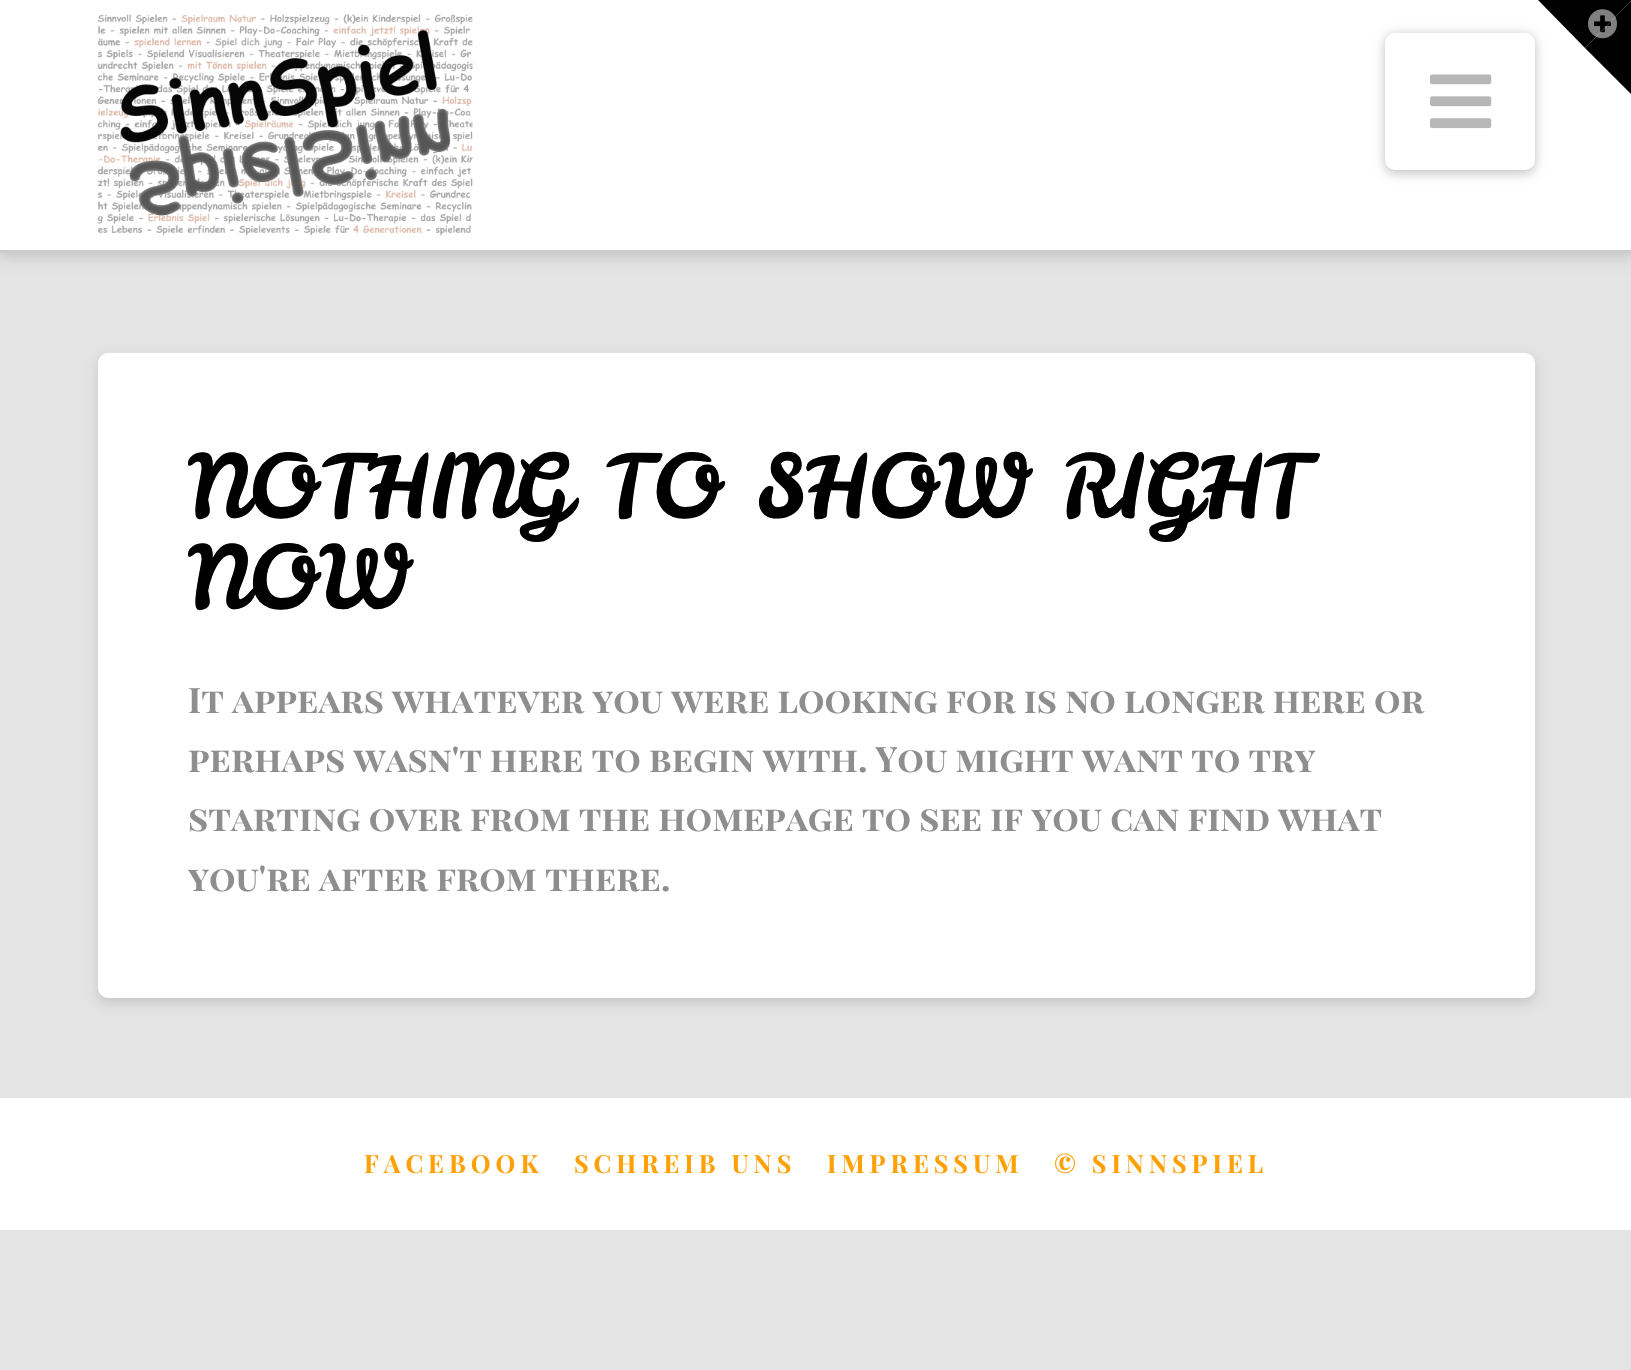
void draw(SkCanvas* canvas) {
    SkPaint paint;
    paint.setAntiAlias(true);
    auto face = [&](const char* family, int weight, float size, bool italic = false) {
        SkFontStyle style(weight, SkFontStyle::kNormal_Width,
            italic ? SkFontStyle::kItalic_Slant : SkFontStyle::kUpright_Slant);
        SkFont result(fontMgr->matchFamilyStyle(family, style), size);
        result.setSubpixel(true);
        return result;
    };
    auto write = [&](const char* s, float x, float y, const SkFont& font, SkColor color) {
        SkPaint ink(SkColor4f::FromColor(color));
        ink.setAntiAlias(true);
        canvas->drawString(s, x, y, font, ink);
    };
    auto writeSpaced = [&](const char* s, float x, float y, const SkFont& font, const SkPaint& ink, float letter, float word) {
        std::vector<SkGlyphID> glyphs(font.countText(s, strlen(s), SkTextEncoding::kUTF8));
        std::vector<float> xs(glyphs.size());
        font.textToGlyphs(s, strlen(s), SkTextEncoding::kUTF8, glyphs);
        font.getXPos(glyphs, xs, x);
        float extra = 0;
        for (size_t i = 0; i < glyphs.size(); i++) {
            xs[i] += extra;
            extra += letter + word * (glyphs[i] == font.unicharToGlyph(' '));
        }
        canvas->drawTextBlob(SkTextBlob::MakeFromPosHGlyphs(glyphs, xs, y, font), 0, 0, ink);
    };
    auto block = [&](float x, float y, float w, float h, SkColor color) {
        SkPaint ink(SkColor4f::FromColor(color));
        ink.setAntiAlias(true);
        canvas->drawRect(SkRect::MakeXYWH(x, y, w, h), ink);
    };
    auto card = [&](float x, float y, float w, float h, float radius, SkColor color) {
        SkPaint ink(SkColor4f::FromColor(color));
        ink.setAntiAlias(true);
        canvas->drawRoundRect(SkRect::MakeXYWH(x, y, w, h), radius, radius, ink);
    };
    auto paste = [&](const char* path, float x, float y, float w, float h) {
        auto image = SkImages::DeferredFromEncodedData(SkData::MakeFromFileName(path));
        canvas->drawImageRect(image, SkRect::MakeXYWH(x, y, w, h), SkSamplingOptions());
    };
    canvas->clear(SkColorSetRGB(228, 228, 228));
    paint.setColor(SkColorSetARGB(33, 0, 0, 0));
    paint.setMaskFilter(SkMaskFilter::MakeBlur(kNormal_SkBlurStyle, 6));
    canvas->drawRect(SkRect::MakeXYWH(0, 5, 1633, 253), paint);
    paint.setMaskFilter(nullptr);
    block(0, 0, 1631, 250, SK_ColorWHITE);
    paint.setColor(SkColorSetARGB(64, 0, 0, 0));
    paint.setMaskFilter(SkMaskFilter::MakeBlur(kNormal_SkBlurStyle, 6));
    canvas->drawRoundRect(SkRect::MakeXYWH(1385, 35, 150, 138), 10, 10, paint);
    paint.setMaskFilter(nullptr);
    paint.setColor(SK_ColorBLACK);
    canvas->drawPath(SkPathBuilder().moveTo(1538, 0).lineTo(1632, 0).lineTo(1585, 48).close().detach(), paint);
    canvas->drawPath(SkPathBuilder().moveTo(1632, 0).lineTo(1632, 95).lineTo(1585, 48).close().detach(), paint);
    paste("pic1.png", 1588, 9, 29, 30);
    block(0, 250, 1631, 3, SkColorSetRGB(204, 204, 204));
    paste("pic2.png", 97, 14, 376, 222);
    card(1385, 33, 150, 137, 10, SK_ColorWHITE);
    paste("pic3.png", 1430, 74, 62, 55);
    paint.setColor(SkColorSetARGB(33, 0, 0, 0));
    paint.setMaskFilter(SkMaskFilter::MakeBlur(kNormal_SkBlurStyle, 6));
    canvas->drawRoundRect(SkRect::MakeXYWH(98, 358, 1437, 645), 10, 10, paint);
    paint.setMaskFilter(nullptr);
    card(98, 353, 1437, 645, 10, SK_ColorWHITE);
    auto kFont1 = face("Leckerli One", 400, 87.5f);
    paint.setColor(SK_ColorBLACK);
    writeSpaced("NOTHING TO SHOW RIGHT", 188, 518, kFont1, paint, -1.6f, 0);
    writeSpaced("NOW", 188, 609, kFont1, paint, -1.6f, 0);
    auto kFont2 = face("Playfair Display SC", 700, 35);
    write("It appears whatever you were looking for is no longer here or", 188, 713, kFont2, SkColorSetRGB(142, 142, 142));
    write("perhaps wasn't here to begin with. You might want to try", 188, 772, kFont2, SkColorSetRGB(142, 142, 142));
    write("starting over from the homepage to see if you can find what", 188, 831, kFont2, SkColorSetRGB(142, 142, 142));
    write("you're after from there.", 188, 891, kFont2, SkColorSetRGB(142, 142, 142));
    block(0, 1098, 1631, 132, SK_ColorWHITE);
    auto kFont3 = face("Playfair Display SC", 700, 25);
    paint.setColor(SkColorSetRGB(255, 160, 4));
    writeSpaced("FACEBOOK", 364, 1173, kFont3, paint, 5, 0);
    writeSpaced("SCHREIB UNS", 574, 1173, kFont3, paint, 5, 0);
    writeSpaced("IMPRESSUM", 827, 1173, kFont3, paint, 5, 0);
    writeSpaced("© SINNSPIEL", 1054, 1173, kFont3, paint, 5, 0);
}
